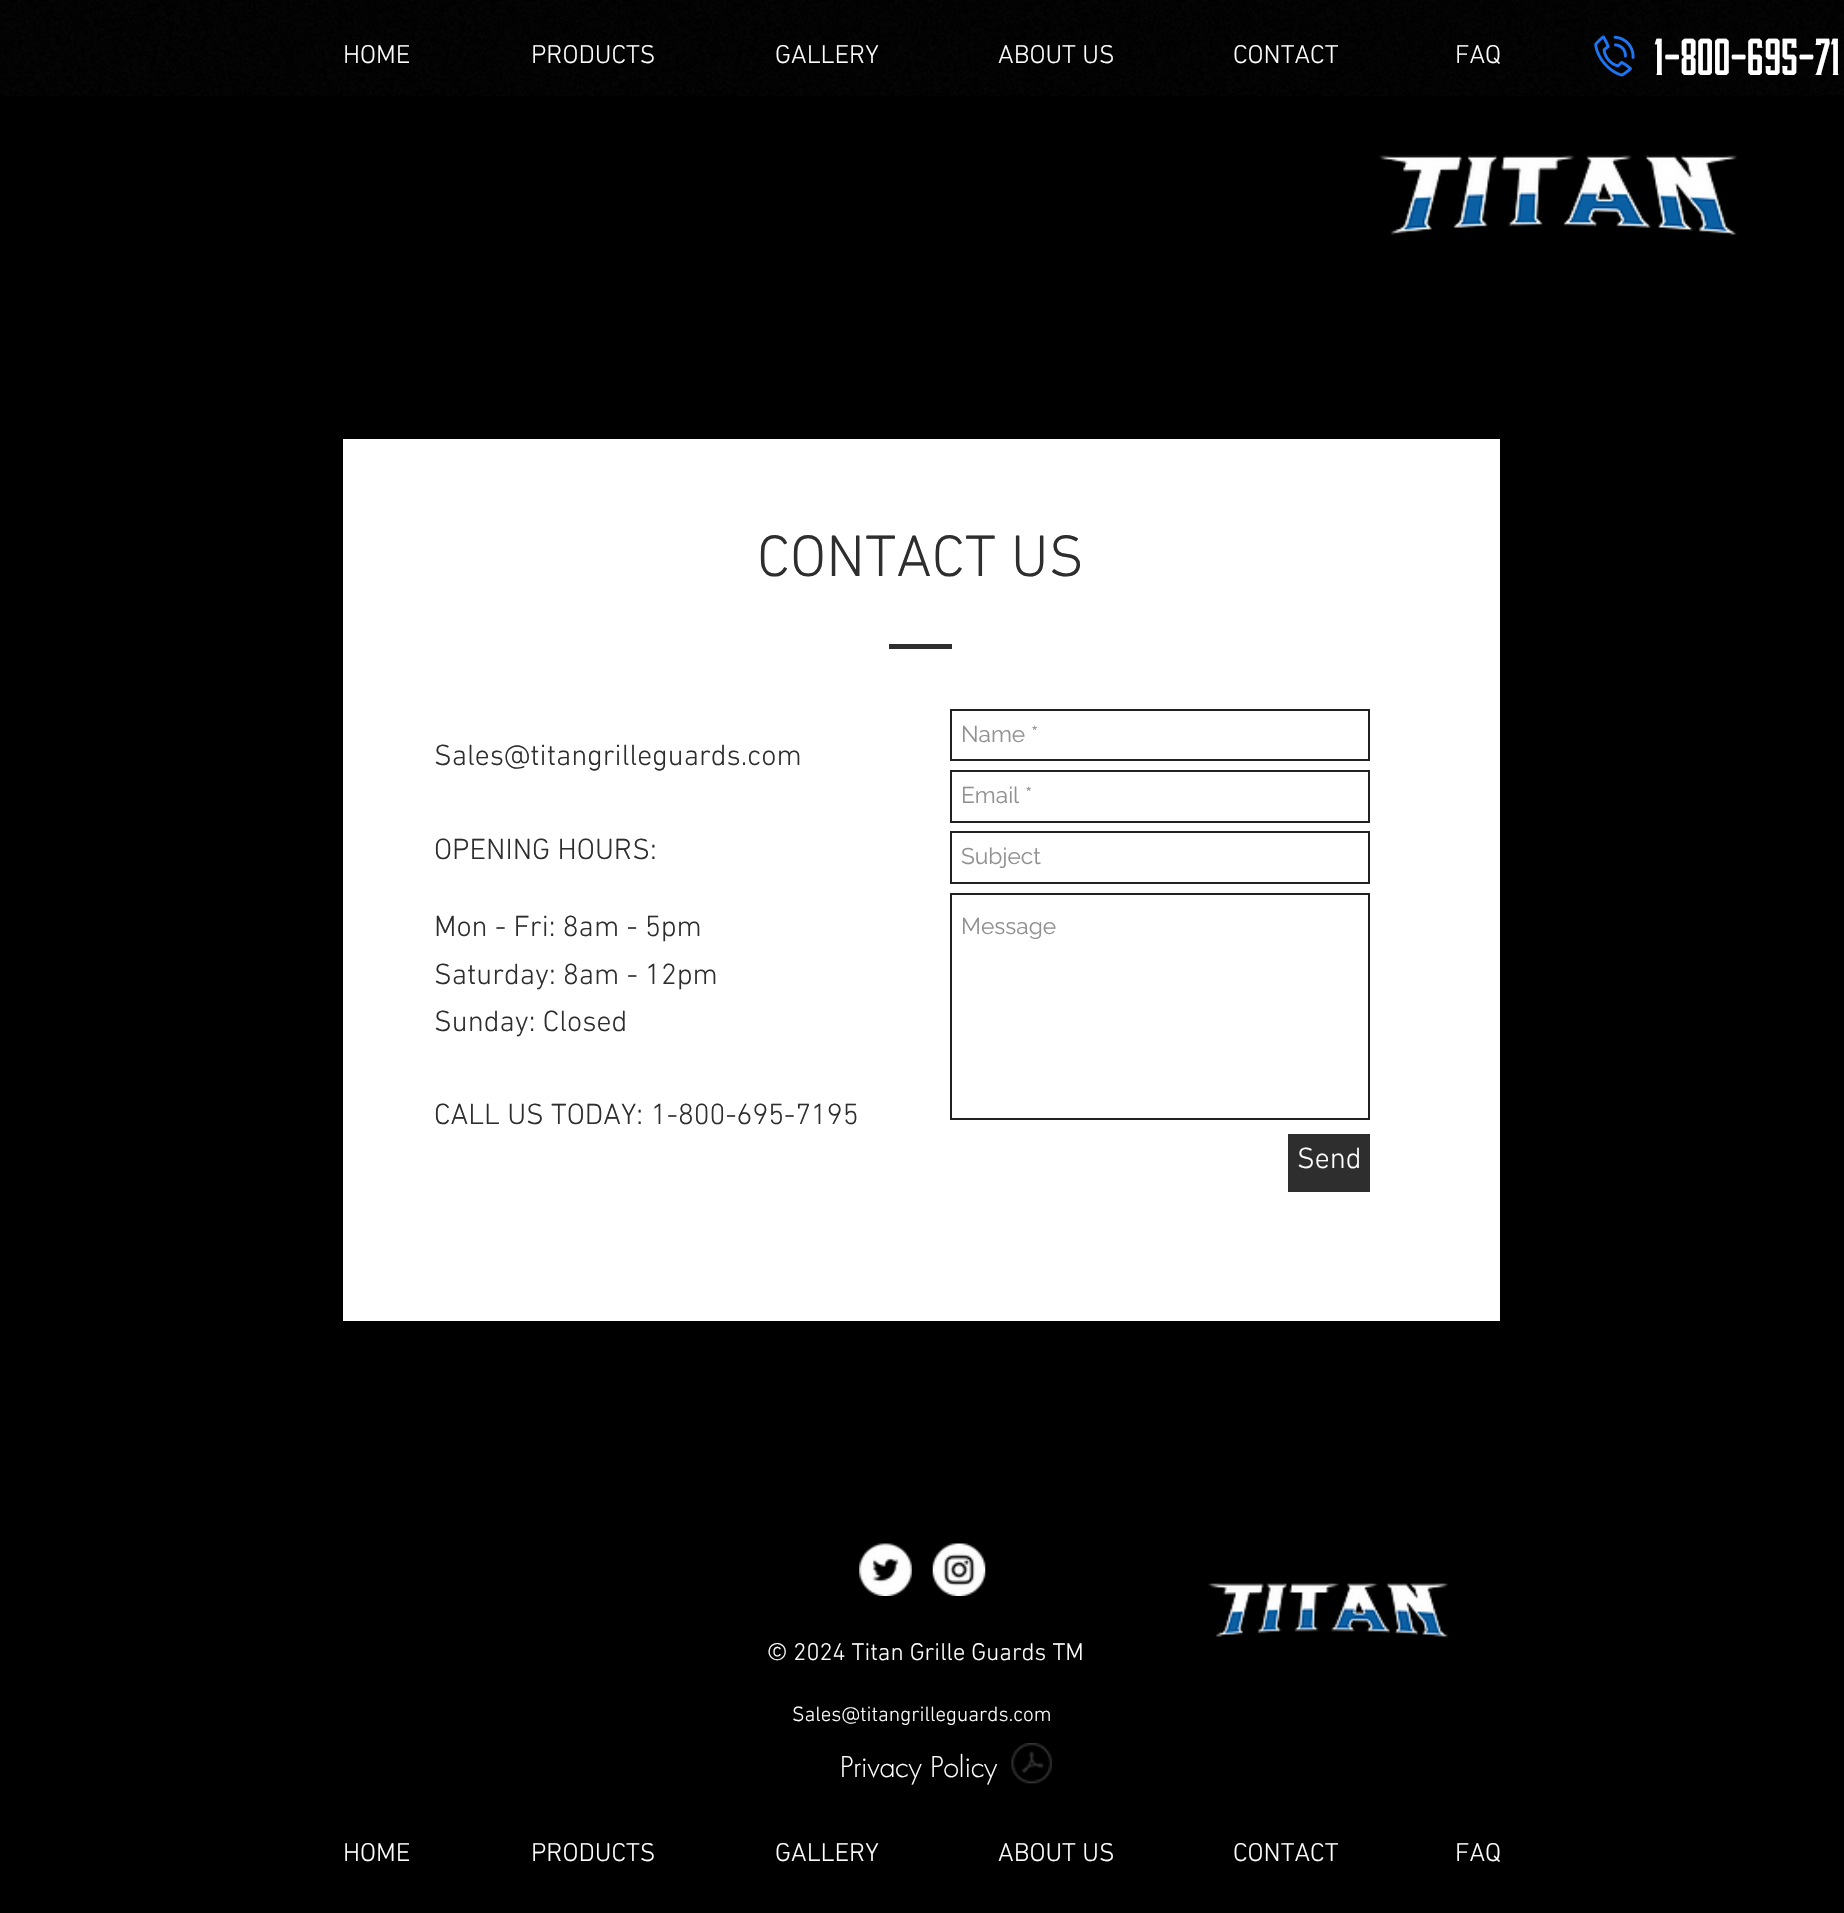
void draw(SkCanvas* canvas) {
    SkPaint paint;
    paint.setAntiAlias(true);
    auto face = [&](const char* family, int weight, float size, bool italic = false) {
        SkFontStyle style(weight, SkFontStyle::kNormal_Width,
            italic ? SkFontStyle::kItalic_Slant : SkFontStyle::kUpright_Slant);
        SkFont result(fontMgr->matchFamilyStyle(family, style), size);
        result.setSubpixel(true);
        return result;
    };
    auto write = [&](const char* s, float x, float y, const SkFont& font, SkColor color) {
        SkPaint ink(SkColor4f::FromColor(color));
        ink.setAntiAlias(true);
        canvas->drawString(s, x, y, font, ink);
    };
    auto block = [&](float x, float y, float w, float h, SkColor color) {
        SkPaint ink(SkColor4f::FromColor(color));
        ink.setAntiAlias(true);
        canvas->drawRect(SkRect::MakeXYWH(x, y, w, h), ink);
    };
    auto paste = [&](const char* path, float x, float y, float w, float h) {
        auto image = SkImages::DeferredFromEncodedData(SkData::MakeFromFileName(path));
        canvas->drawImageRect(image, SkRect::MakeXYWH(x, y, w, h), SkSamplingOptions());
    };
    canvas->clear(SK_ColorBLACK);
    paste("pic1.png", 0, 0, 1844, 96);
    auto kFont1 = face("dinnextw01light", 300, 26.25f);
    write("HOME", 343, 63, kFont1, SK_ColorWHITE);
    write("PRODUCTS", 531, 63, kFont1, SK_ColorWHITE);
    write("GALLERY", 775, 63, kFont1, SK_ColorWHITE);
    write("ABOUT US", 998, 63, kFont1, SK_ColorWHITE);
    write("CONTACT", 1233, 63, kFont1, SK_ColorWHITE);
    write("FAQ", 1455, 63, kFont1, SK_ColorWHITE);
    paste("pic2.png", 1594, 35, 41, 42);
    auto kFont2 = face("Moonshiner", 400, 52.5f);
    write("1-800-695-71", 1654, 75, kFont2, SK_ColorWHITE);
    paste("pic3.png", 1379, 155, 358, 80);
    block(343, 439, 1157, 882, SK_ColorWHITE);
    auto kFont3 = face("dinnextw01light", 300, 59.5f);
    write("CONTACT US", 757, 576, kFont3, SkColorSetRGB(47, 46, 46));
    block(889, 644, 63, 5, SkColorSetRGB(47, 46, 46));
    auto kFont4 = face("dinnextw01light", 300, 29.75f);
    write("Sales@titangrilleguards.com", 434, 765, kFont4, SkColorSetRGB(47, 46, 46));
    paint.setStyle(SkPaint::kStroke_Style);
    paint.setStrokeWidth(2);
    paint.setColor(SkColorSetRGB(33, 33, 33));
    canvas->drawRect(SkRect::MakeXYWH(951, 710, 418, 50), paint);
    auto kFont5 = face("Raleway", 400, 22.75f);
    write("Name *", 961, 742, kFont5, SkColorSetRGB(145, 145, 145));
    canvas->drawRect(SkRect::MakeXYWH(951, 771, 418, 51), paint);
    write("Email *", 961, 803, kFont5, SkColorSetRGB(145, 145, 145));
    canvas->drawRect(SkRect::MakeXYWH(951, 832, 418, 51), paint);
    write("Subject", 961, 864, kFont5, SkColorSetRGB(145, 145, 145));
    canvas->drawRect(SkRect::MakeXYWH(951, 894, 418, 225), paint);
    write("Message", 961, 934, kFont5, SkColorSetRGB(145, 145, 145));
    block(1288, 1134, 82, 58, SkColorSetRGB(47, 46, 46));
    write("Send", 1297, 1168, kFont4, SK_ColorWHITE);
    write("OPENING HOURS:", 434, 859, kFont4, SkColorSetRGB(47, 46, 46));
    write("Mon - Fri: 8am - 5pm", 434, 936, kFont4, SkColorSetRGB(47, 46, 46));
    write("Saturday: 8am - 12pm", 434, 984, kFont4, SkColorSetRGB(47, 46, 46));
    write("Sunday: Closed", 434, 1031, kFont4, SkColorSetRGB(47, 46, 46));
    write("CALL US TODAY:", 434, 1124, kFont4, SkColorSetRGB(47, 46, 46));
    write("1-800-695-7195", 651, 1124, kFont4, SkColorSetRGB(47, 46, 46));
    paste("pic4.png", 859, 1543, 53, 53);
    paste("pic5.png", 932, 1543, 54, 53);
    paste("pic6.png", 1207, 1581, 242, 57);
    auto kFont6 = face("dinnextw01light", 300, 24.5f);
    write("© 2024 Titan Grille Guards TM", 767, 1660, kFont6, SK_ColorWHITE);
    auto kFont7 = face("dinnextw01light", 300, 21);
    write("Sales@titangrilleguards.com", 792, 1721, kFont7, SK_ColorWHITE);
    auto kFont8 = face("futura", 300, 28);
    write("Privacy Policy", 840, 1777, kFont8, SK_ColorWHITE);
    paste("pic7.png", 1011, 1743, 41, 41);
    write("HOME", 343, 1861, kFont1, SK_ColorWHITE);
    write("PRODUCTS", 531, 1861, kFont1, SK_ColorWHITE);
    write("GALLERY", 775, 1861, kFont1, SK_ColorWHITE);
    write("ABOUT US", 998, 1861, kFont1, SK_ColorWHITE);
    write("CONTACT", 1233, 1861, kFont1, SK_ColorWHITE);
    write("FAQ", 1455, 1861, kFont1, SK_ColorWHITE);
}
